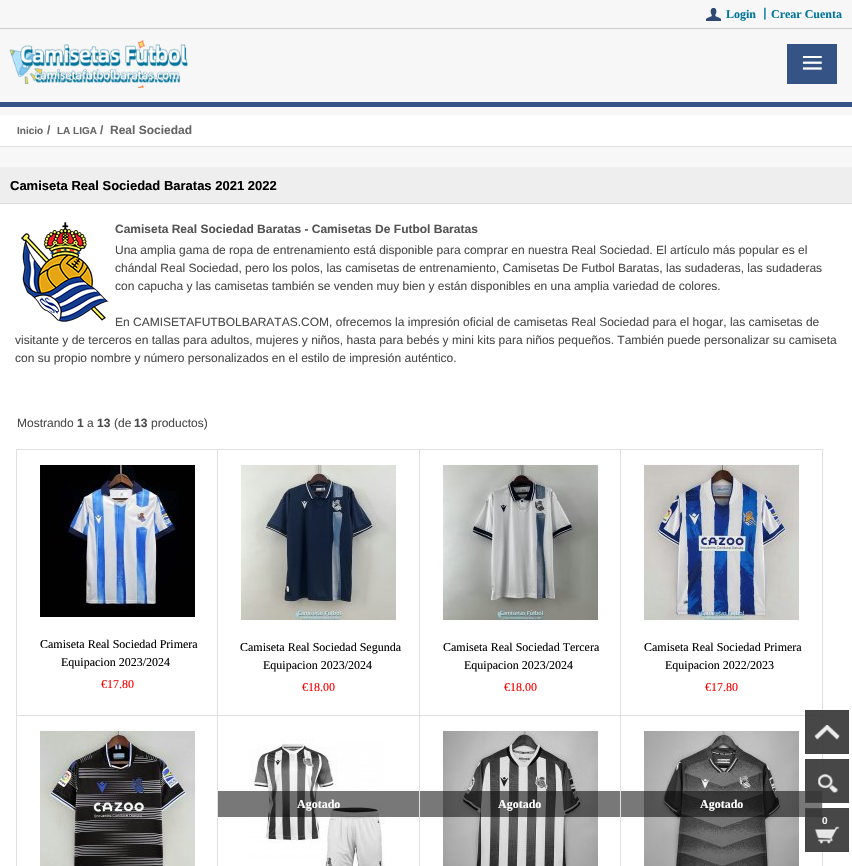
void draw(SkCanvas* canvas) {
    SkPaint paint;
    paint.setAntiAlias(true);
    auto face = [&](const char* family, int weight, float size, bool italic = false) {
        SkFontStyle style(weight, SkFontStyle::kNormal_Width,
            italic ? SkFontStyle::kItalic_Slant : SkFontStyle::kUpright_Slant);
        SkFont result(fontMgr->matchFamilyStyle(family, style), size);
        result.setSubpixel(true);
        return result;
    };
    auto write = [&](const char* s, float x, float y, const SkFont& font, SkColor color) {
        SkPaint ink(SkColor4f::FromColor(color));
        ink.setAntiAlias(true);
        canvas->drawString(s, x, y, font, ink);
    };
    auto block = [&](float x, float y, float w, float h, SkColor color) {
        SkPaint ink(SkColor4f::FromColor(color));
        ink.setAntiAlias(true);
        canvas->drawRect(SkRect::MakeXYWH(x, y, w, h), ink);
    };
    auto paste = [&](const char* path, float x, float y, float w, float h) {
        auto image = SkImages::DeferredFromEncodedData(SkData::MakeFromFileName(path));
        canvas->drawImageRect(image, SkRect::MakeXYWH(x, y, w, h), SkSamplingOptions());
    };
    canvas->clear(SkColorSetRGB(247, 247, 247));
    block(0, 102, 852, 5, SkColorSetRGB(53, 83, 133));
    block(0, 28, 852, 1, SkColorSetRGB(207, 207, 207));
    paste("pic1.png", 706, 8, 15, 13);
    auto kFont1 = face("Liberation Serif", 700, 12);
    write("Login", 726, 18, kFont1, SkColorSetRGB(0, 118, 158));
    auto kFont2 = face("WenQuanYi Zen Hei", 700, 12);
    write("丨", 759, 18, kFont2, SkColorSetRGB(0, 118, 158));
    write("Crear Cuenta", 771, 18, kFont1, SkColorSetRGB(0, 118, 158));
    paste("pic2.png", 9, 40, 179, 48);
    block(787, 44, 50, 40, SkColorSetRGB(53, 83, 133));
    auto kFont3 = face("Liberation Serif", 400, 40);
    write("≡", 801, 76, kFont3, SK_ColorWHITE);
    block(0, 115, 852, 31, SK_ColorWHITE);
    block(0, 146, 852, 1, SkColorSetRGB(222, 222, 222));
    auto kFont4 = face("Liberation Sans", 700, 10);
    write("Inicio", 17, 134, kFont4, SkColorSetRGB(102, 102, 102));
    auto kFont5 = face("Liberation Sans", 700, 12);
    write("/", 47, 134, kFont5, SkColorSetRGB(102, 102, 102));
    write("LA LIGA", 57, 134, kFont4, SkColorSetRGB(102, 102, 102));
    write("/  Real Sociedad", 100, 134, kFont5, SkColorSetRGB(102, 102, 102));
    block(0, 204, 852, 662, SK_ColorWHITE);
    block(0, 167, 852, 1, SkColorSetRGB(239, 239, 239));
    block(0, 168, 852, 35, SkColorSetRGB(238, 238, 238));
    block(0, 203, 852, 1, SkColorSetRGB(218, 218, 218));
    auto kFont6 = face("Liberation Sans", 700, 13);
    write("Camiseta Real Sociedad Baratas 2021 2022", 10, 190, kFont6, SK_ColorBLACK);
    paste("pic3.png", 21, 222, 88, 100);
    write("Camiseta Real Sociedad Baratas - Camisetas De Futbol Baratas", 115, 233, kFont5, SkColorSetRGB(84, 84, 84));
    auto kFont7 = face("Liberation Sans", 400, 12);
    write("Una amplia gama de ropa de entrenamiento está disponible para comprar en nuestra Real Sociedad. El artículo más popular es el", 115, 254, kFont7, SkColorSetRGB(75, 75, 75));
    write("chándal Real Sociedad, pero los polos, las camisetas de entrenamiento, Camisetas De Futbol Baratas, las sudaderas, las sudaderas", 115, 272, kFont7, SkColorSetRGB(75, 75, 75));
    write("con capucha y las camisetas también se venden muy bien y están disponibles en una amplia variedad de colores.", 115, 290, kFont7, SkColorSetRGB(75, 75, 75));
    write("En CAMISETAFUTBOLBARATAS.COM, ofrecemos la impresión oficial de camisetas Real Sociedad para el hogar, las camisetas de", 115, 326, kFont7, SkColorSetRGB(75, 75, 75));
    write("visitante y de terceros en tallas para adultos, mujeres y niños, hasta para bebés y mini kits para niños pequeños. También puede personalizar su camiseta", 15, 344, kFont7, SkColorSetRGB(75, 75, 75));
    write("con su propio nombre y número personalizados en el estilo de impresión auténtico.", 15, 362, kFont7, SkColorSetRGB(75, 75, 75));
    write("Mostrando", 17, 427, kFont7, SkColorSetRGB(75, 75, 75));
    write("1", 77, 427, kFont5, SkColorSetRGB(75, 75, 75));
    write("a", 87, 427, kFont7, SkColorSetRGB(75, 75, 75));
    write("13", 97, 427, kFont5, SkColorSetRGB(75, 75, 75));
    write("(de", 114, 427, kFont7, SkColorSetRGB(75, 75, 75));
    write("13", 134, 427, kFont5, SkColorSetRGB(75, 75, 75));
    write("productos)", 151, 427, kFont7, SkColorSetRGB(75, 75, 75));
    paint.setStyle(SkPaint::kStroke_Style);
    paint.setStrokeWidth(1);
    paint.setColor(SkColorSetRGB(224, 224, 224));
    canvas->drawRect(SkRect::MakeXYWH(16.5f, 449.5f, 201, 266), paint);
    paste("pic4.png", 40, 465, 155, 152);
    auto kFont8 = face("Liberation Serif", 400, 12);
    write("Camiseta Real Sociedad Primera", 40, 648, kFont8, SK_ColorBLACK);
    write("Equipacion 2023/2024", 61, 666, kFont8, SK_ColorBLACK);
    write("€17.80", 101, 688, kFont8, SkColorSetRGB(255, 0, 0));
    canvas->drawRect(SkRect::MakeXYWH(217.5f, 449.5f, 202, 266), paint);
    paste("pic5.png", 241, 465, 155, 155);
    write("Camiseta Real Sociedad Segunda", 240, 651, kFont8, SK_ColorBLACK);
    write("Equipacion 2023/2024", 263, 669, kFont8, SK_ColorBLACK);
    write("€18.00", 302, 691, kFont8, SkColorSetRGB(255, 0, 0));
    canvas->drawRect(SkRect::MakeXYWH(419.5f, 449.5f, 201, 266), paint);
    paste("pic6.png", 443, 465, 155, 155);
    write("Camiseta Real Sociedad Tercera", 443, 651, kFont8, SK_ColorBLACK);
    write("Equipacion 2023/2024", 464, 669, kFont8, SK_ColorBLACK);
    write("€18.00", 504, 691, kFont8, SkColorSetRGB(255, 0, 0));
    canvas->drawRect(SkRect::MakeXYWH(620.5f, 449.5f, 202, 266), paint);
    paste("pic7.png", 644, 465, 155, 155);
    write("Camiseta Real Sociedad Primera", 644, 651, kFont8, SK_ColorBLACK);
    write("Equipacion 2022/2023", 665, 669, kFont8, SK_ColorBLACK);
    write("€17.80", 705, 691, kFont8, SkColorSetRGB(255, 0, 0));
    canvas->drawRect(SkRect::MakeXYWH(16.5f, 715.5f, 201, 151), paint);
    paste("pic8.png", 40, 731, 155, 135);
    canvas->drawRect(SkRect::MakeXYWH(217.5f, 715.5f, 202, 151), paint);
    paste("pic9.png", 249, 739, 136, 127);
    block(218, 791, 201, 26, SkColorSetARGB(135, 0, 0, 0));
    write("Agotado", 297, 808, kFont1, SK_ColorWHITE);
    canvas->drawRect(SkRect::MakeXYWH(419.5f, 715.5f, 201, 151), paint);
    paste("pic10.png", 443, 731, 155, 135);
    block(420, 791, 200, 26, SkColorSetARGB(135, 0, 0, 0));
    write("Agotado", 498, 808, kFont1, SK_ColorWHITE);
    canvas->drawRect(SkRect::MakeXYWH(620.5f, 715.5f, 202, 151), paint);
    paste("pic11.png", 644, 731, 155, 135);
    block(621, 791, 201, 26, SkColorSetARGB(135, 0, 0, 0));
    write("Agotado", 700, 808, kFont1, SK_ColorWHITE);
    block(805, 710, 44, 44, SkColorSetARGB(230, 51, 51, 51));
    paint.setColor(SkColorSetARGB(230, 68, 68, 68));
    canvas->drawRect(SkRect::MakeXYWH(805.5f, 710.5f, 43, 43), paint);
    paste("pic12.png", 814, 725, 26, 15);
    block(805, 759, 44, 44, SkColorSetARGB(230, 51, 51, 51));
    canvas->drawRect(SkRect::MakeXYWH(805.5f, 759.5f, 43, 43), paint);
    paste("pic13.png", 818, 774, 20, 19);
    block(805, 808, 44, 44, SkColorSetARGB(230, 51, 51, 51));
    canvas->drawRect(SkRect::MakeXYWH(805.5f, 808.5f, 43, 43), paint);
    write("0", 822, 824, kFont4, SkColorSetRGB(237, 237, 237));
    paste("pic14.png", 814, 826, 26, 18);
}
